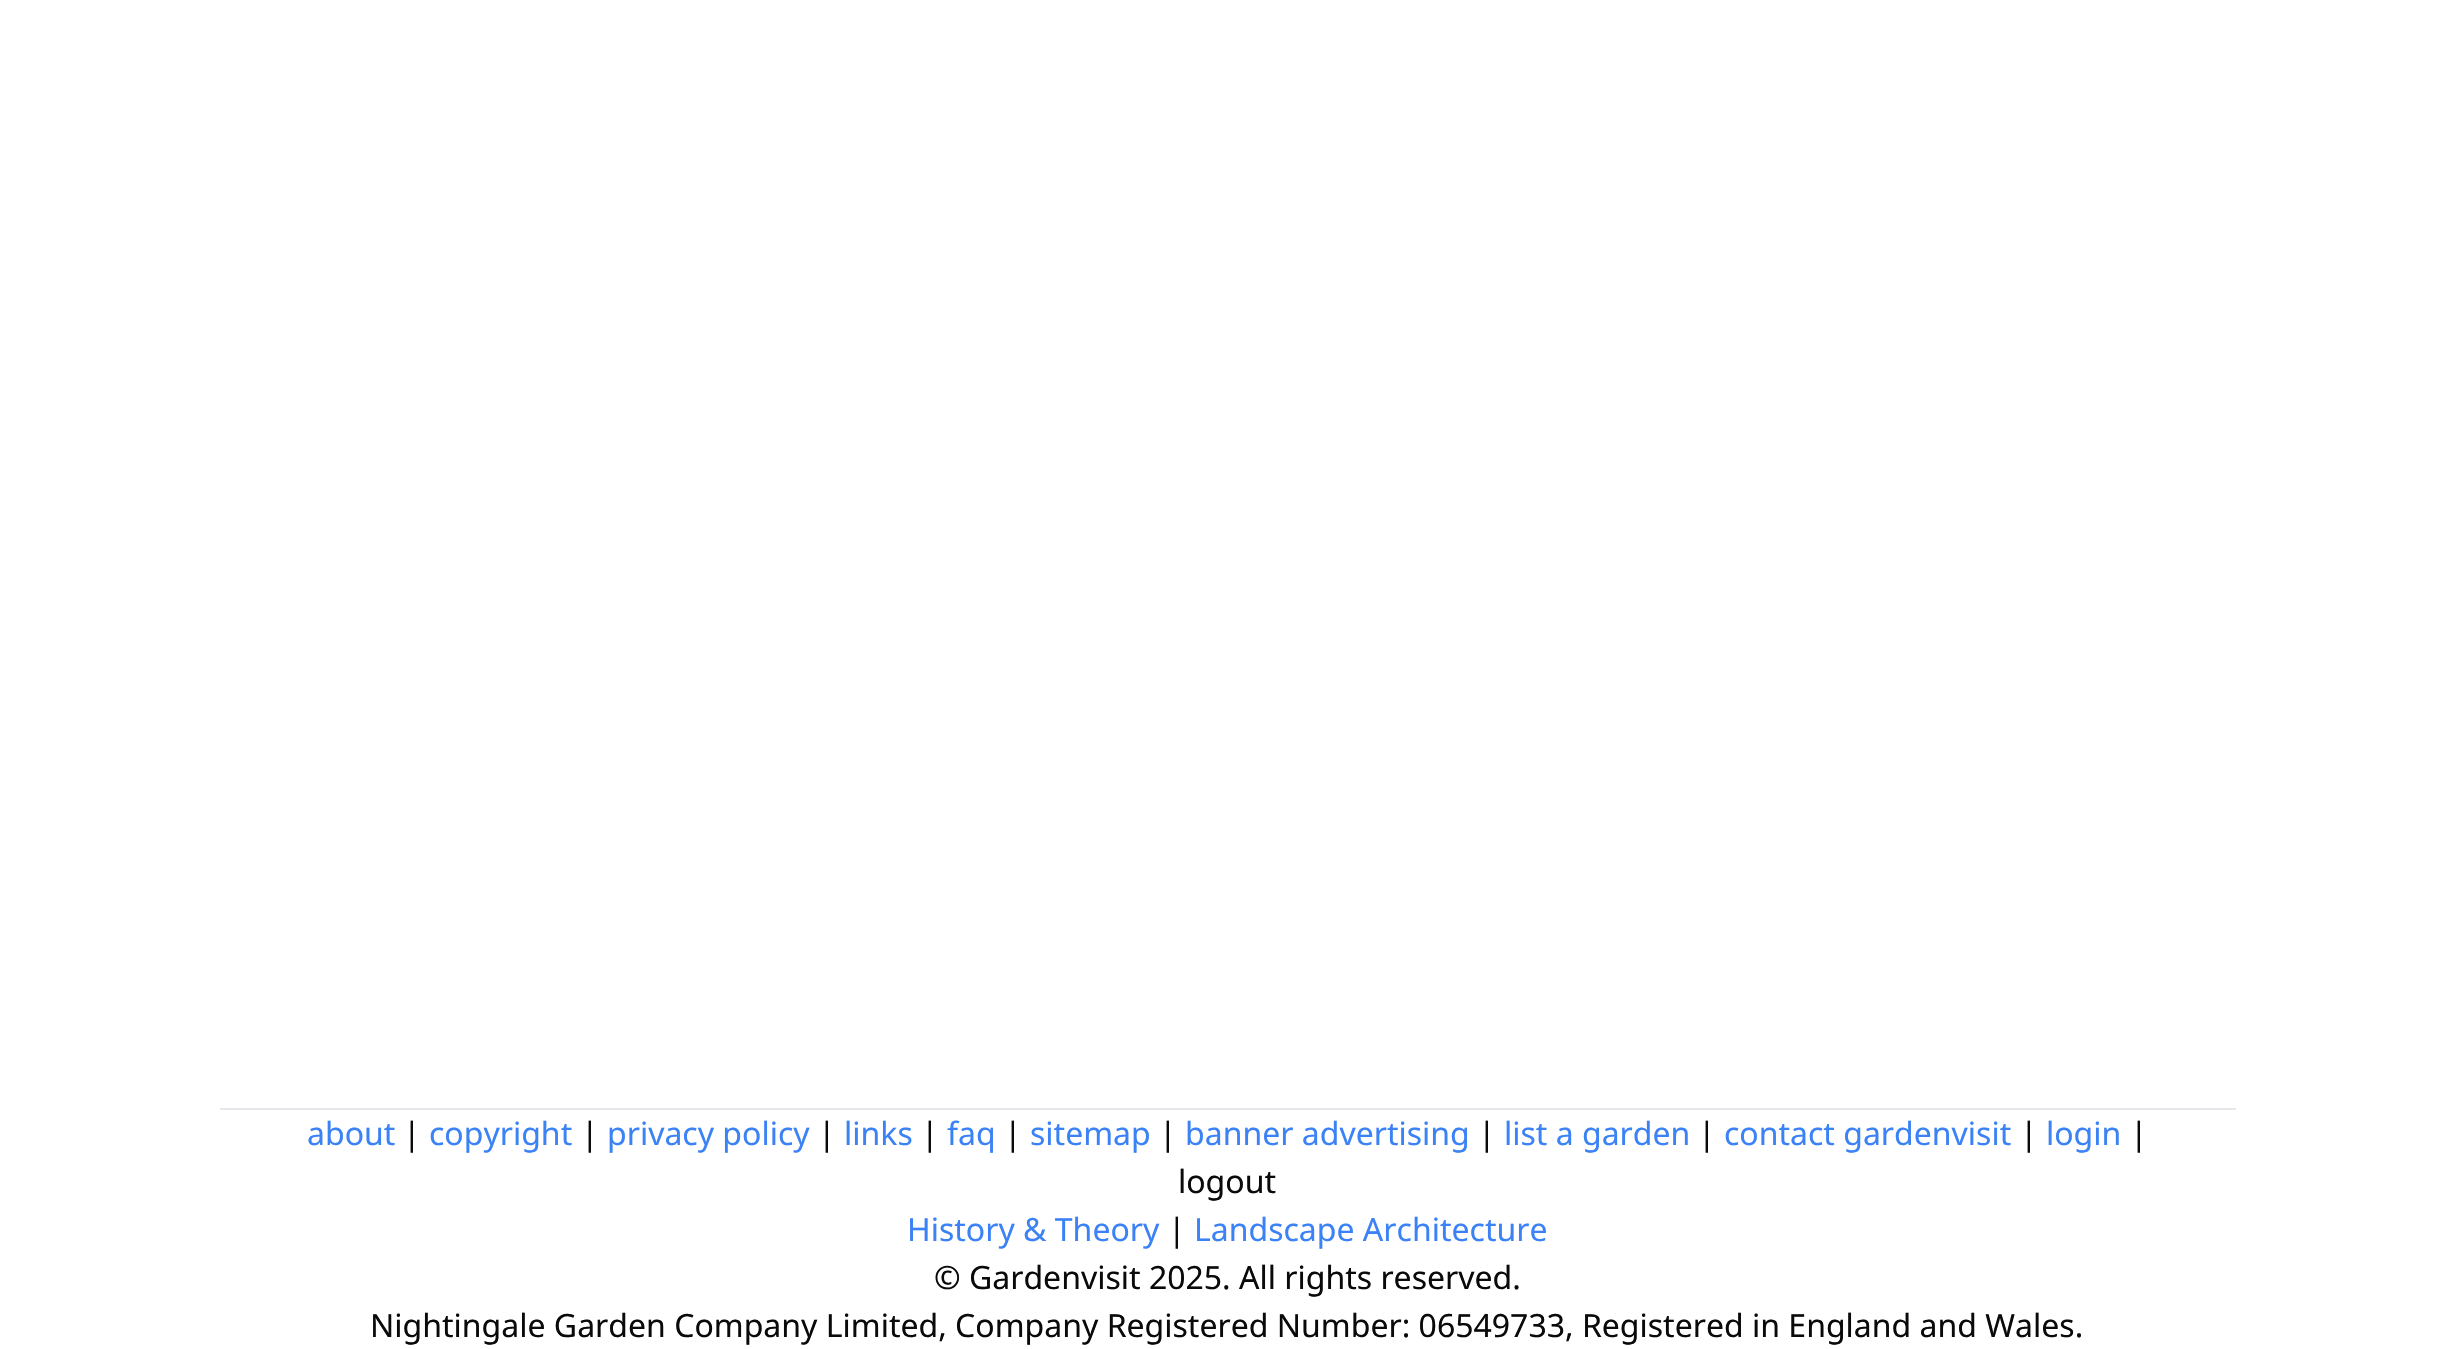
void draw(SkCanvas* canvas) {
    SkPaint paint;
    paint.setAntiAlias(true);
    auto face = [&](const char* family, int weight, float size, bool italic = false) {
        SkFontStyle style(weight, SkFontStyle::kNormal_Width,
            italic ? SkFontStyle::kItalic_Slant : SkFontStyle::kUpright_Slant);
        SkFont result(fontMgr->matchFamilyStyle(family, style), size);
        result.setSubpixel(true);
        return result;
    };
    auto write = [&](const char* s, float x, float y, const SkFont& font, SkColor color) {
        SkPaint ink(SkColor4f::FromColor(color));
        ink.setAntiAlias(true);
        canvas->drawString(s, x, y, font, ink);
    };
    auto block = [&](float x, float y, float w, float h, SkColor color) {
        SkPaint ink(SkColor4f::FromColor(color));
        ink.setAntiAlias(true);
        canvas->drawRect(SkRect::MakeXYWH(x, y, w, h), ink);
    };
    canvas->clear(SK_ColorWHITE);
    block(220, 1108, 2016, 2, SkColorSetRGB(229, 231, 235));
    auto kFont1 = face("Noto Sans", 400, 32);
    write("about", 307, 1145, kFont1, SkColorSetRGB(59, 130, 246));
    write("|", 403, 1145, kFont1, SkColorSetRGB(10, 10, 10));
    write("copyright", 429, 1145, kFont1, SkColorSetRGB(59, 130, 246));
    write("|", 581, 1145, kFont1, SkColorSetRGB(10, 10, 10));
    write("privacy policy", 607, 1145, kFont1, SkColorSetRGB(59, 130, 246));
    write("|", 818, 1145, kFont1, SkColorSetRGB(10, 10, 10));
    write("links", 844, 1145, kFont1, SkColorSetRGB(59, 130, 246));
    write("|", 921, 1145, kFont1, SkColorSetRGB(10, 10, 10));
    write("faq", 947, 1145, kFont1, SkColorSetRGB(59, 130, 246));
    write("|", 1004, 1145, kFont1, SkColorSetRGB(10, 10, 10));
    write("sitemap", 1030, 1145, kFont1, SkColorSetRGB(59, 130, 246));
    write("|", 1159, 1145, kFont1, SkColorSetRGB(10, 10, 10));
    write("banner advertising", 1185, 1145, kFont1, SkColorSetRGB(59, 130, 246));
    write("|", 1478, 1145, kFont1, SkColorSetRGB(10, 10, 10));
    write("list a garden", 1504, 1145, kFont1, SkColorSetRGB(59, 130, 246));
    write("|", 1698, 1145, kFont1, SkColorSetRGB(10, 10, 10));
    write("contact gardenvisit", 1724, 1145, kFont1, SkColorSetRGB(59, 130, 246));
    write("|", 2020, 1145, kFont1, SkColorSetRGB(10, 10, 10));
    write("login", 2046, 1145, kFont1, SkColorSetRGB(59, 130, 246));
    write("|", 2130, 1145, kFont1, SkColorSetRGB(10, 10, 10));
    write("logout", 1178, 1193, kFont1, SkColorSetRGB(10, 10, 10));
    write("History & Theory", 907, 1241, kFont1, SkColorSetRGB(59, 130, 246));
    write("|", 1168, 1241, kFont1, SkColorSetRGB(10, 10, 10));
    write("Landscape Architecture", 1194, 1241, kFont1, SkColorSetRGB(59, 130, 246));
    write("© Gardenvisit 2025. All rights reserved.", 934, 1289, kFont1, SkColorSetRGB(10, 10, 10));
    write("Nightingale Garden Company Limited, Company Registered Number: 06549733, Registered in England and Wales.", 370, 1337, kFont1, SkColorSetRGB(10, 10, 10));
}
